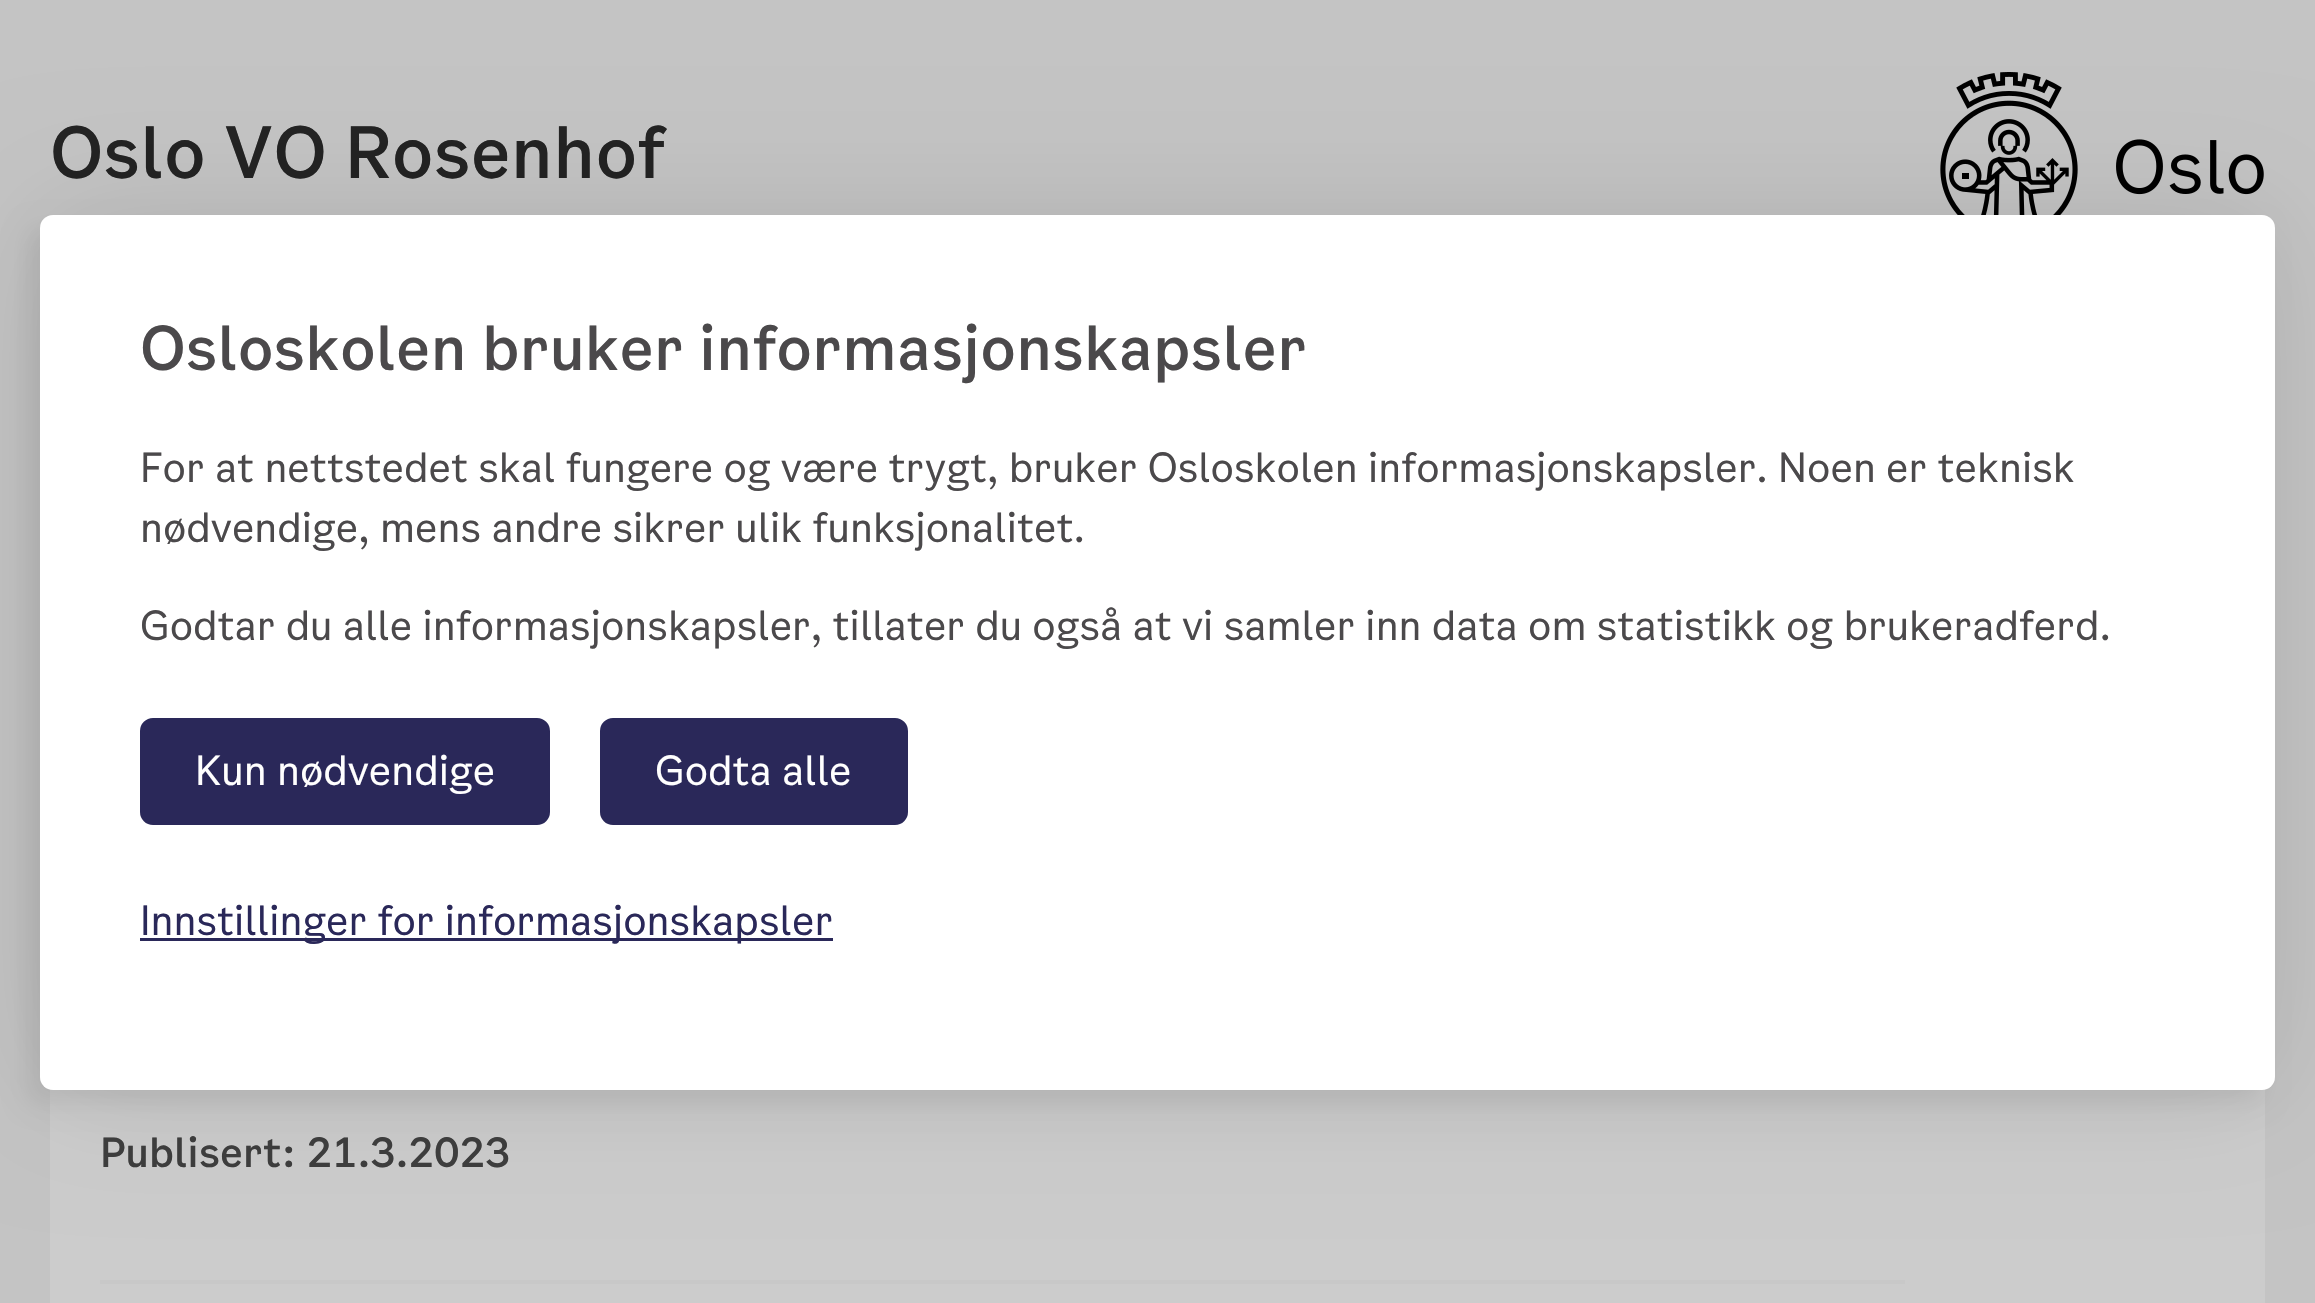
void draw(SkCanvas* canvas) {
    SkPaint paint;
    paint.setAntiAlias(true);
    auto face = [&](const char* family, int weight, float size, bool italic = false) {
        SkFontStyle style(weight, SkFontStyle::kNormal_Width,
            italic ? SkFontStyle::kItalic_Slant : SkFontStyle::kUpright_Slant);
        SkFont result(fontMgr->matchFamilyStyle(family, style), size);
        result.setSubpixel(true);
        return result;
    };
    auto write = [&](const char* s, float x, float y, const SkFont& font, SkColor color) {
        SkPaint ink(SkColor4f::FromColor(color));
        ink.setAntiAlias(true);
        canvas->drawString(s, x, y, font, ink);
    };
    auto block = [&](float x, float y, float w, float h, SkColor color) {
        SkPaint ink(SkColor4f::FromColor(color));
        ink.setAntiAlias(true);
        canvas->drawRect(SkRect::MakeXYWH(x, y, w, h), ink);
    };
    auto card = [&](float x, float y, float w, float h, float radius, SkColor color) {
        SkPaint ink(SkColor4f::FromColor(color));
        ink.setAntiAlias(true);
        canvas->drawRoundRect(SkRect::MakeXYWH(x, y, w, h), radius, radius, ink);
    };
    auto paste = [&](const char* path, float x, float y, float w, float h) {
        auto image = SkImages::DeferredFromEncodedData(SkData::MakeFromFileName(path));
        canvas->drawImageRect(image, SkRect::MakeXYWH(x, y, w, h), SkSamplingOptions());
    };
    canvas->clear(SkColorSetRGB(196, 196, 196));
    auto kFont1 = face("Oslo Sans", 500, 70);
    write("Oslo VO Rosenhof", 50, 178, kFont1, SkColorSetRGB(35, 35, 35));
    paste("pic1.png", 1940, 72, 324, 143);
    block(50, 1089, 2215, 214, SkColorSetRGB(204, 204, 204));
    auto kFont2 = face("Oslo Sans", 500, 40);
    write("Publisert: 21.3.2023", 100, 1167, kFont2, SkColorSetRGB(62, 62, 62));
    block(100, 1280, 1805, 4, SkColorSetRGB(200, 200, 200));
    paint.setColor(SkColorSetARGB(26, 0, 0, 0));
    paint.setMaskFilter(SkMaskFilter::MakeBlur(kNormal_SkBlurStyle, 62.5f));
    canvas->drawRoundRect(SkRect::MakeXYWH(40, 215, 2235, 875), 13, 13, paint);
    paint.setMaskFilter(nullptr);
    paint.setColor(SkColorSetARGB(18, 0, 0, 0));
    paint.setMaskFilter(SkMaskFilter::MakeBlur(kNormal_SkBlurStyle, 12.5f));
    canvas->drawRoundRect(SkRect::MakeXYWH(28, 228, 2235, 875), 13, 13, paint);
    paint.setMaskFilter(nullptr);
    card(40, 215, 2235, 875, 13, SK_ColorWHITE);
    auto kFont3 = face("Oslo Sans", 500, 60);
    write("Osloskolen bruker informasjonskapsler", 140, 370, kFont3, SkColorSetRGB(75, 73, 75));
    auto kFont4 = face("Oslo Sans", 400, 40);
    write("For at nettstedet skal fungere og være trygt, bruker Osloskolen informasjonskapsler. Noen er teknisk", 140, 482, kFont4, SkColorSetRGB(75, 73, 75));
    write("nødvendige, mens andre sikrer ulik funksjonalitet.", 140, 542, kFont4, SkColorSetRGB(75, 73, 75));
    write("Godtar du alle informasjonskapsler, tillater du også at vi samler inn data om statistikk og brukeradferd.", 140, 640, kFont4, SkColorSetRGB(75, 73, 75));
    paint.setColor(SkColorSetRGB(42, 40, 89));
    canvas->drawRoundRect(SkRect::MakeXYWH(142.5f, 720.5f, 405, 102), 10.5f, 10.5f, paint);
    paint.setStyle(SkPaint::kStroke_Style);
    paint.setStrokeWidth(5);
    canvas->drawRoundRect(SkRect::MakeXYWH(142.5f, 720.5f, 405, 102), 10.5f, 10.5f, paint);
    write("Kun nødvendige", 195, 785, kFont4, SK_ColorWHITE);
    paint.setStyle(SkPaint::kFill_Style);
    canvas->drawRoundRect(SkRect::MakeXYWH(602.5f, 720.5f, 303, 102), 10.5f, 10.5f, paint);
    paint.setStyle(SkPaint::kStroke_Style);
    canvas->drawRoundRect(SkRect::MakeXYWH(602.5f, 720.5f, 303, 102), 10.5f, 10.5f, paint);
    write("Godta alle", 655, 785, kFont4, SK_ColorWHITE);
    block(140, 938, 693, 3, SkColorSetRGB(42, 40, 89));
    write("Innstillinger for informasjonskapsler", 140, 935, kFont4, SkColorSetRGB(42, 40, 89));
}
